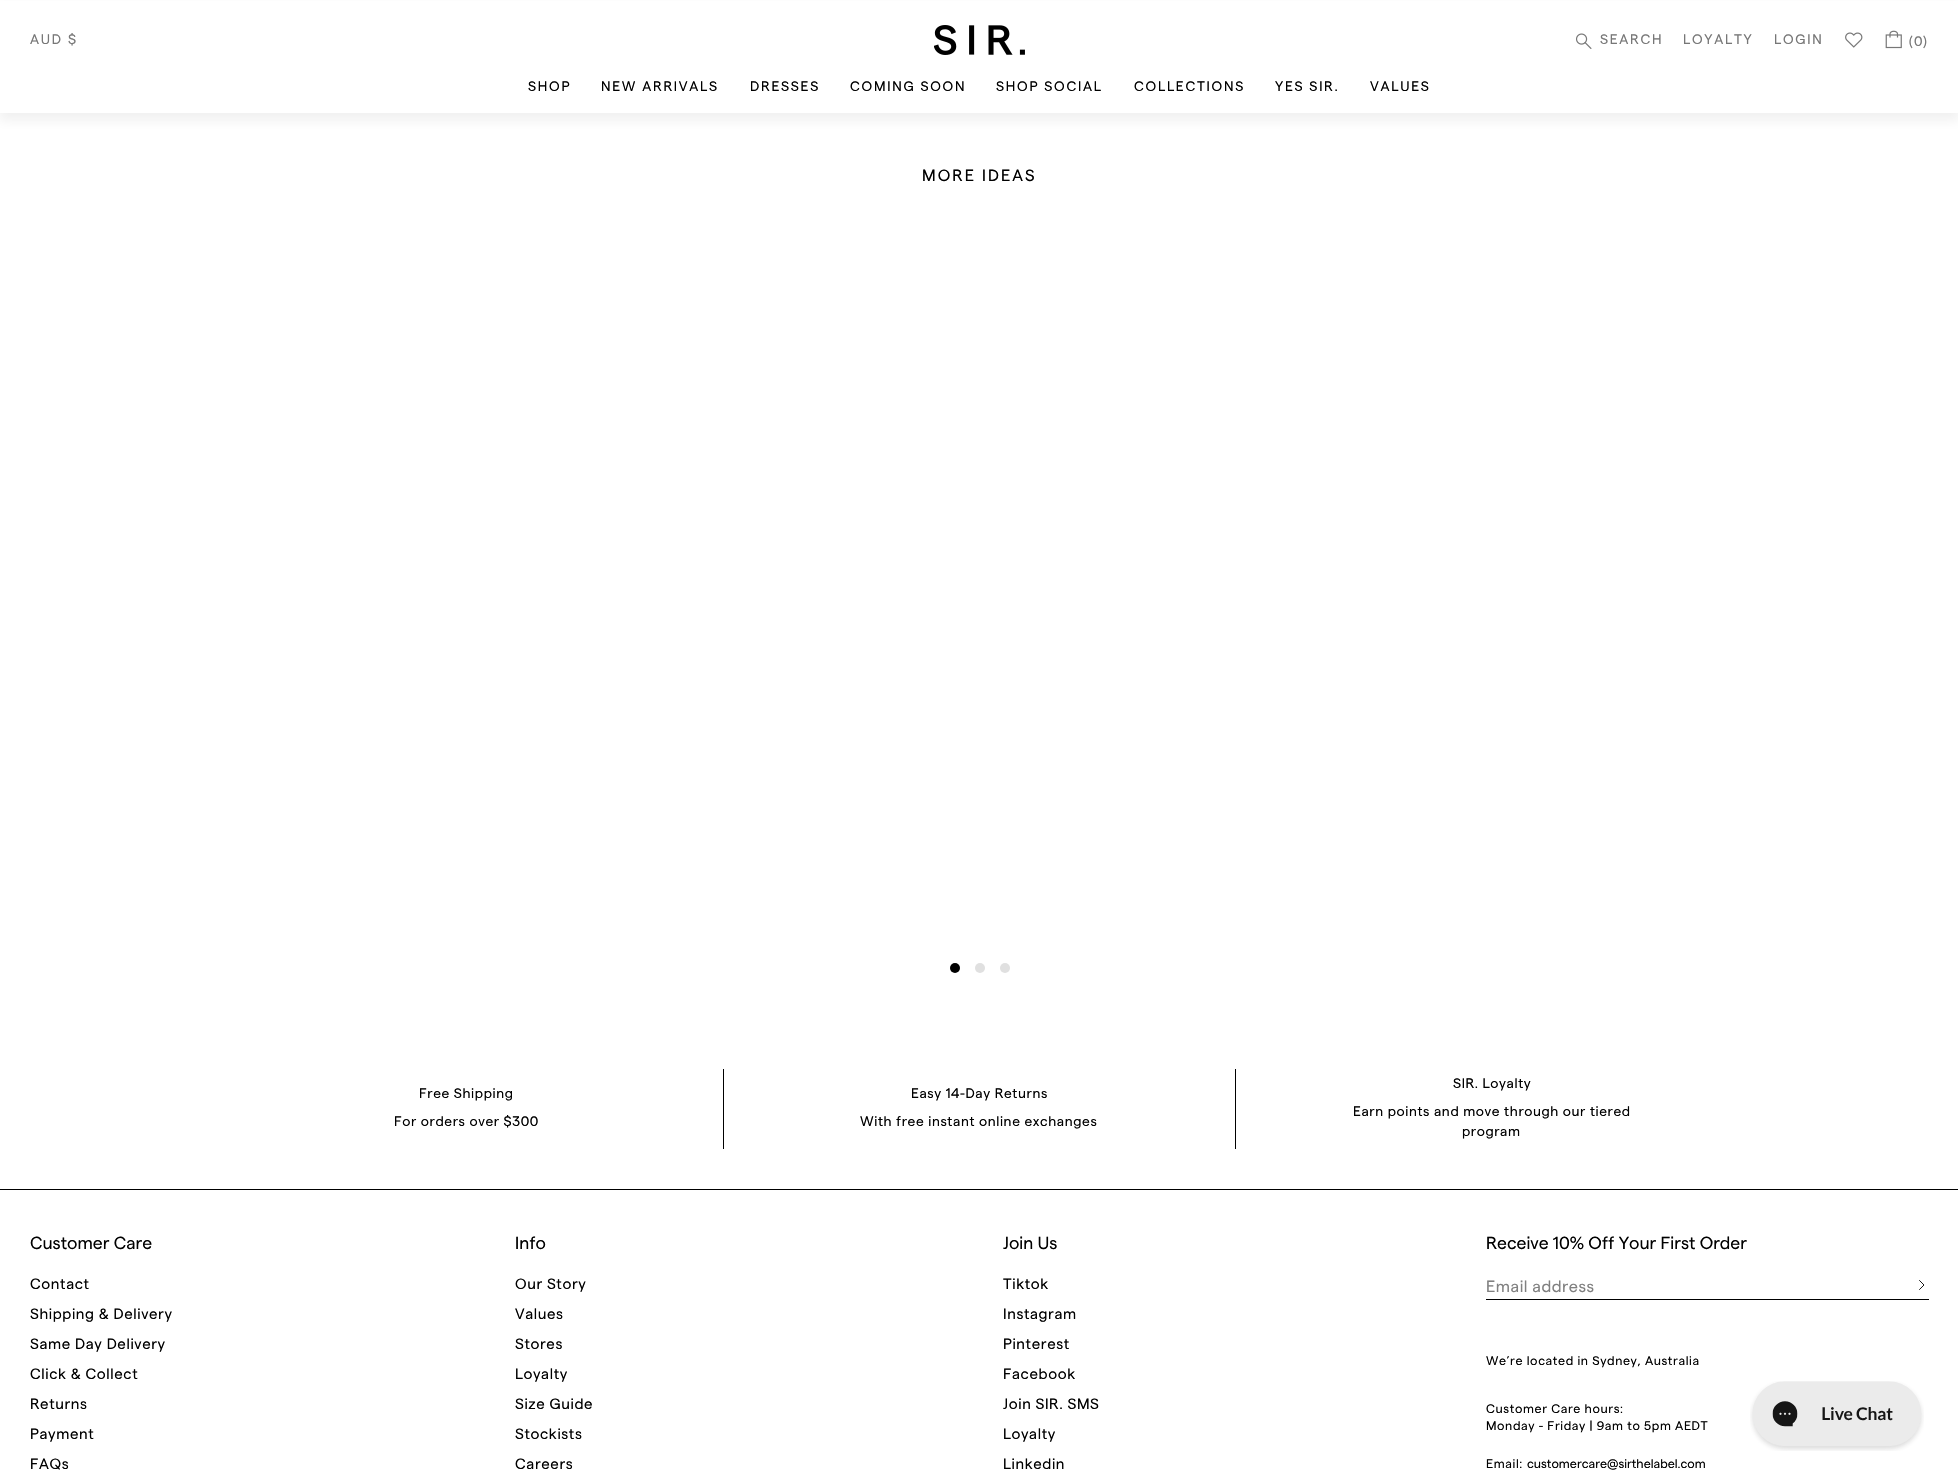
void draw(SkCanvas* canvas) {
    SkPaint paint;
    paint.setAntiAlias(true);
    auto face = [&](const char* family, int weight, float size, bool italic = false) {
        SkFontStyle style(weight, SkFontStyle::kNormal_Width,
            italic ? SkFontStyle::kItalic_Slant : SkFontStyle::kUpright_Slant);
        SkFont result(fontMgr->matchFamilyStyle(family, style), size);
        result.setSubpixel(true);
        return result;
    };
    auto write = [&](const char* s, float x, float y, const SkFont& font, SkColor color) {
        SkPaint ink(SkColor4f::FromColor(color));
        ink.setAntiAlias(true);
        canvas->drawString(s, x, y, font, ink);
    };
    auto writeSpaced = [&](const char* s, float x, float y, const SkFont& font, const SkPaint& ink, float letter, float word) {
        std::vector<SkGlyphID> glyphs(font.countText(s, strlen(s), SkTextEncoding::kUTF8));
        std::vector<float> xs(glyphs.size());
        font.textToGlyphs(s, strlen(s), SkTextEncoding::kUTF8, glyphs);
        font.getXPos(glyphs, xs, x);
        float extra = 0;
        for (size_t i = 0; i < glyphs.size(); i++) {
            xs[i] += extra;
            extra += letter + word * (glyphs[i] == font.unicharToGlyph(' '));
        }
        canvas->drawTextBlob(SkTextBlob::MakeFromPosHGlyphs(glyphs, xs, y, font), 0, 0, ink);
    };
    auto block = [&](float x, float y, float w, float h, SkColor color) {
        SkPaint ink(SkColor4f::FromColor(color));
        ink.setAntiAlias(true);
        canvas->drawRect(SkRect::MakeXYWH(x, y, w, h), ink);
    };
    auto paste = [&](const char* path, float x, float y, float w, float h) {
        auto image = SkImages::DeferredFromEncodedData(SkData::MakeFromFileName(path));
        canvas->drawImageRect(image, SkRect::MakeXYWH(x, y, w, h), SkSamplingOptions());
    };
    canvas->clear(SK_ColorWHITE);
    paint.setColor(SkColorSetARGB(15, 21, 23, 24));
    paint.setMaskFilter(SkMaskFilter::MakeBlur(kNormal_SkBlurStyle, 5.5f));
    canvas->drawRect(SkRect::MakeXYWH(-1, 6, 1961, 115), paint);
    paint.setMaskFilter(nullptr);
    block(0, 1, 1958, 112, SK_ColorWHITE);
    auto kFont1 = face("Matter", 400, 13.75f);
    paint.setColor(SkColorSetRGB(119, 119, 119));
    writeSpaced("AUD $", 30, 44, kFont1, paint, 1.75f, 0);
    paste("pic1.png", 934, 25, 91, 30);
    paste("pic2.png", 1576, 33, 16, 16);
    writeSpaced("SEARCH", 1600, 44, kFont1, paint, 1.75f, 0);
    writeSpaced("LOYALTY", 1683, 44, kFont1, paint, 1.75f, 0);
    writeSpaced("LOGIN", 1774, 44, kFont1, paint, 1.75f, 0);
    paste("pic3.png", 1845, 32, 18, 16);
    paste("pic4.png", 1885, 30, 17, 19);
    writeSpaced("(", 1909, 46, kFont1, paint, 1.75f, 0);
    writeSpaced("0", 1914, 46, kFont1, paint, 1.75f, 0);
    writeSpaced(")", 1923, 46, kFont1, paint, 1.75f, 0);
    paint.setColor(SK_ColorBLACK);
    writeSpaced("SHOP", 528, 91, kFont1, paint, 1.75f, 0);
    writeSpaced("NEW ARRIVALS", 601, 91, kFont1, paint, 1.75f, 0);
    writeSpaced("DRESSES", 750, 91, kFont1, paint, 1.75f, 0);
    writeSpaced("COMING SOON", 850, 91, kFont1, paint, 1.75f, 0);
    writeSpaced("SHOP SOCIAL", 996, 91, kFont1, paint, 1.75f, 0);
    writeSpaced("COLLECTIONS", 1134, 91, kFont1, paint, 1.75f, 0);
    writeSpaced("YES SIR.", 1275, 91, kFont1, paint, 1.75f, 0);
    writeSpaced("VALUES", 1370, 91, kFont1, paint, 1.75f, 0);
    auto kFont2 = face("Matter", 400, 16.25f);
    writeSpaced("MORE IDEAS", 922, 181, kFont2, paint, 2.1f, 0);
    canvas->drawCircle(955, 968, 5, paint);
    paint.setColor(SkColorSetRGB(224, 224, 224));
    canvas->drawCircle(980, 968, 5, paint);
    canvas->drawCircle(1005, 968, 5, paint);
    paint.setColor(SK_ColorBLACK);
    writeSpaced("Free Shipping", 419, 1098, kFont1, paint, 0.6f, 0);
    block(723, 1069, 1, 80, SK_ColorBLACK);
    writeSpaced("For orders over $300", 394, 1126, kFont1, paint, 0.6f, 0);
    writeSpaced("Easy 14-Day Returns", 911, 1098, kFont1, paint, 0.6f, 0);
    block(1235, 1069, 1, 80, SK_ColorBLACK);
    writeSpaced("With free instant online exchanges", 860, 1126, kFont1, paint, 0.6f, 0);
    writeSpaced("SIR. Loyalty", 1453, 1088, kFont1, paint, 0.6f, 0);
    writeSpaced("Earn points and move through our tiered", 1353, 1116, kFont1, paint, 0.6f, 0);
    writeSpaced("program", 1462, 1136, kFont1, paint, 0.6f, 0);
    block(0, 1189, 1958, 1, SK_ColorBLACK);
    auto kFont3 = face("Matter", 400, 17.5f);
    write("Customer Care", 30, 1249, kFont3, SK_ColorBLACK);
    auto kFont4 = face("Matter", 400, 15);
    writeSpaced("Contact", 30, 1289, kFont4, paint, 0.6f, 0);
    writeSpaced("Shipping & Delivery", 30, 1319, kFont4, paint, 0.6f, 0);
    writeSpaced("Same Day Delivery", 30, 1349, kFont4, paint, 0.6f, 0);
    writeSpaced("Click & Collect", 30, 1379, kFont4, paint, 0.6f, 0);
    writeSpaced("Returns", 30, 1409, kFont4, paint, 0.6f, 0);
    writeSpaced("Payment", 30, 1439, kFont4, paint, 0.6f, 0);
    writeSpaced("FAQs", 30, 1469, kFont4, paint, 0.6f, 0);
    write("Info", 515, 1249, kFont3, SK_ColorBLACK);
    writeSpaced("Our Story", 515, 1289, kFont4, paint, 0.6f, 0);
    writeSpaced("Values", 515, 1319, kFont4, paint, 0.6f, 0);
    writeSpaced("Stores", 515, 1349, kFont4, paint, 0.6f, 0);
    writeSpaced("Loyalty", 515, 1379, kFont4, paint, 0.6f, 0);
    writeSpaced("Size Guide", 515, 1409, kFont4, paint, 0.6f, 0);
    writeSpaced("Stockists", 515, 1439, kFont4, paint, 0.6f, 0);
    writeSpaced("Careers", 515, 1469, kFont4, paint, 0.6f, 0);
    write("Join Us", 1003, 1249, kFont3, SK_ColorBLACK);
    writeSpaced("Tiktok", 1003, 1289, kFont4, paint, 0.6f, 0);
    writeSpaced("Instagram", 1003, 1319, kFont4, paint, 0.6f, 0);
    writeSpaced("Pinterest", 1003, 1349, kFont4, paint, 0.6f, 0);
    writeSpaced("Facebook", 1003, 1379, kFont4, paint, 0.6f, 0);
    writeSpaced("Join SIR. SMS", 1003, 1409, kFont4, paint, 0.6f, 0);
    writeSpaced("Loyalty", 1003, 1439, kFont4, paint, 0.6f, 0);
    writeSpaced("Linkedin", 1003, 1469, kFont4, paint, 0.6f, 0);
    write("Receive 10% Off Your First Order", 1486, 1249, kFont3, SK_ColorBLACK);
    block(1486, 1299, 443, 1, SK_ColorBLACK);
    paint.setColor(SkColorSetRGB(128, 128, 128));
    writeSpaced("Email address", 1486, 1292, kFont2, paint, 0.5f, 0);
    paint.setStyle(SkPaint::kStroke_Style);
    paint.setStrokeWidth(0.9f);
    paint.setStrokeCap(SkPaint::kRound_Cap);
    paint.setStrokeJoin(SkPaint::kRound_Join);
    paint.setColor(SK_ColorBLACK);
    canvas->drawPath(SkPathBuilder().moveTo(1919.5f, 1280.5f).lineTo(1924, 1285).lineTo(1919.5f, 1289.5f).detach(), paint);
    auto kFont5 = face("Matter", 400, 12.5f);
    paint.setStyle(SkPaint::kFill_Style);
    writeSpaced("We’re located in Sydney, Australia", 1486, 1365, kFont5, paint, 0.6f, 0);
    writeSpaced("Customer Care hours:", 1486, 1413, kFont5, paint, 0.6f, 0);
    writeSpaced("Monday - Friday | 9am to 5pm AEDT", 1486, 1430, kFont5, paint, 0.6f, 0);
    writeSpaced("Email:", 1486, 1468, kFont5, paint, 0.6f, 0);
    write("customercare@sirthelabel.com", 1527, 1468, kFont5, SK_ColorBLACK);
    paste("pic5.png", 1750, 1381, 174, 70);
}
